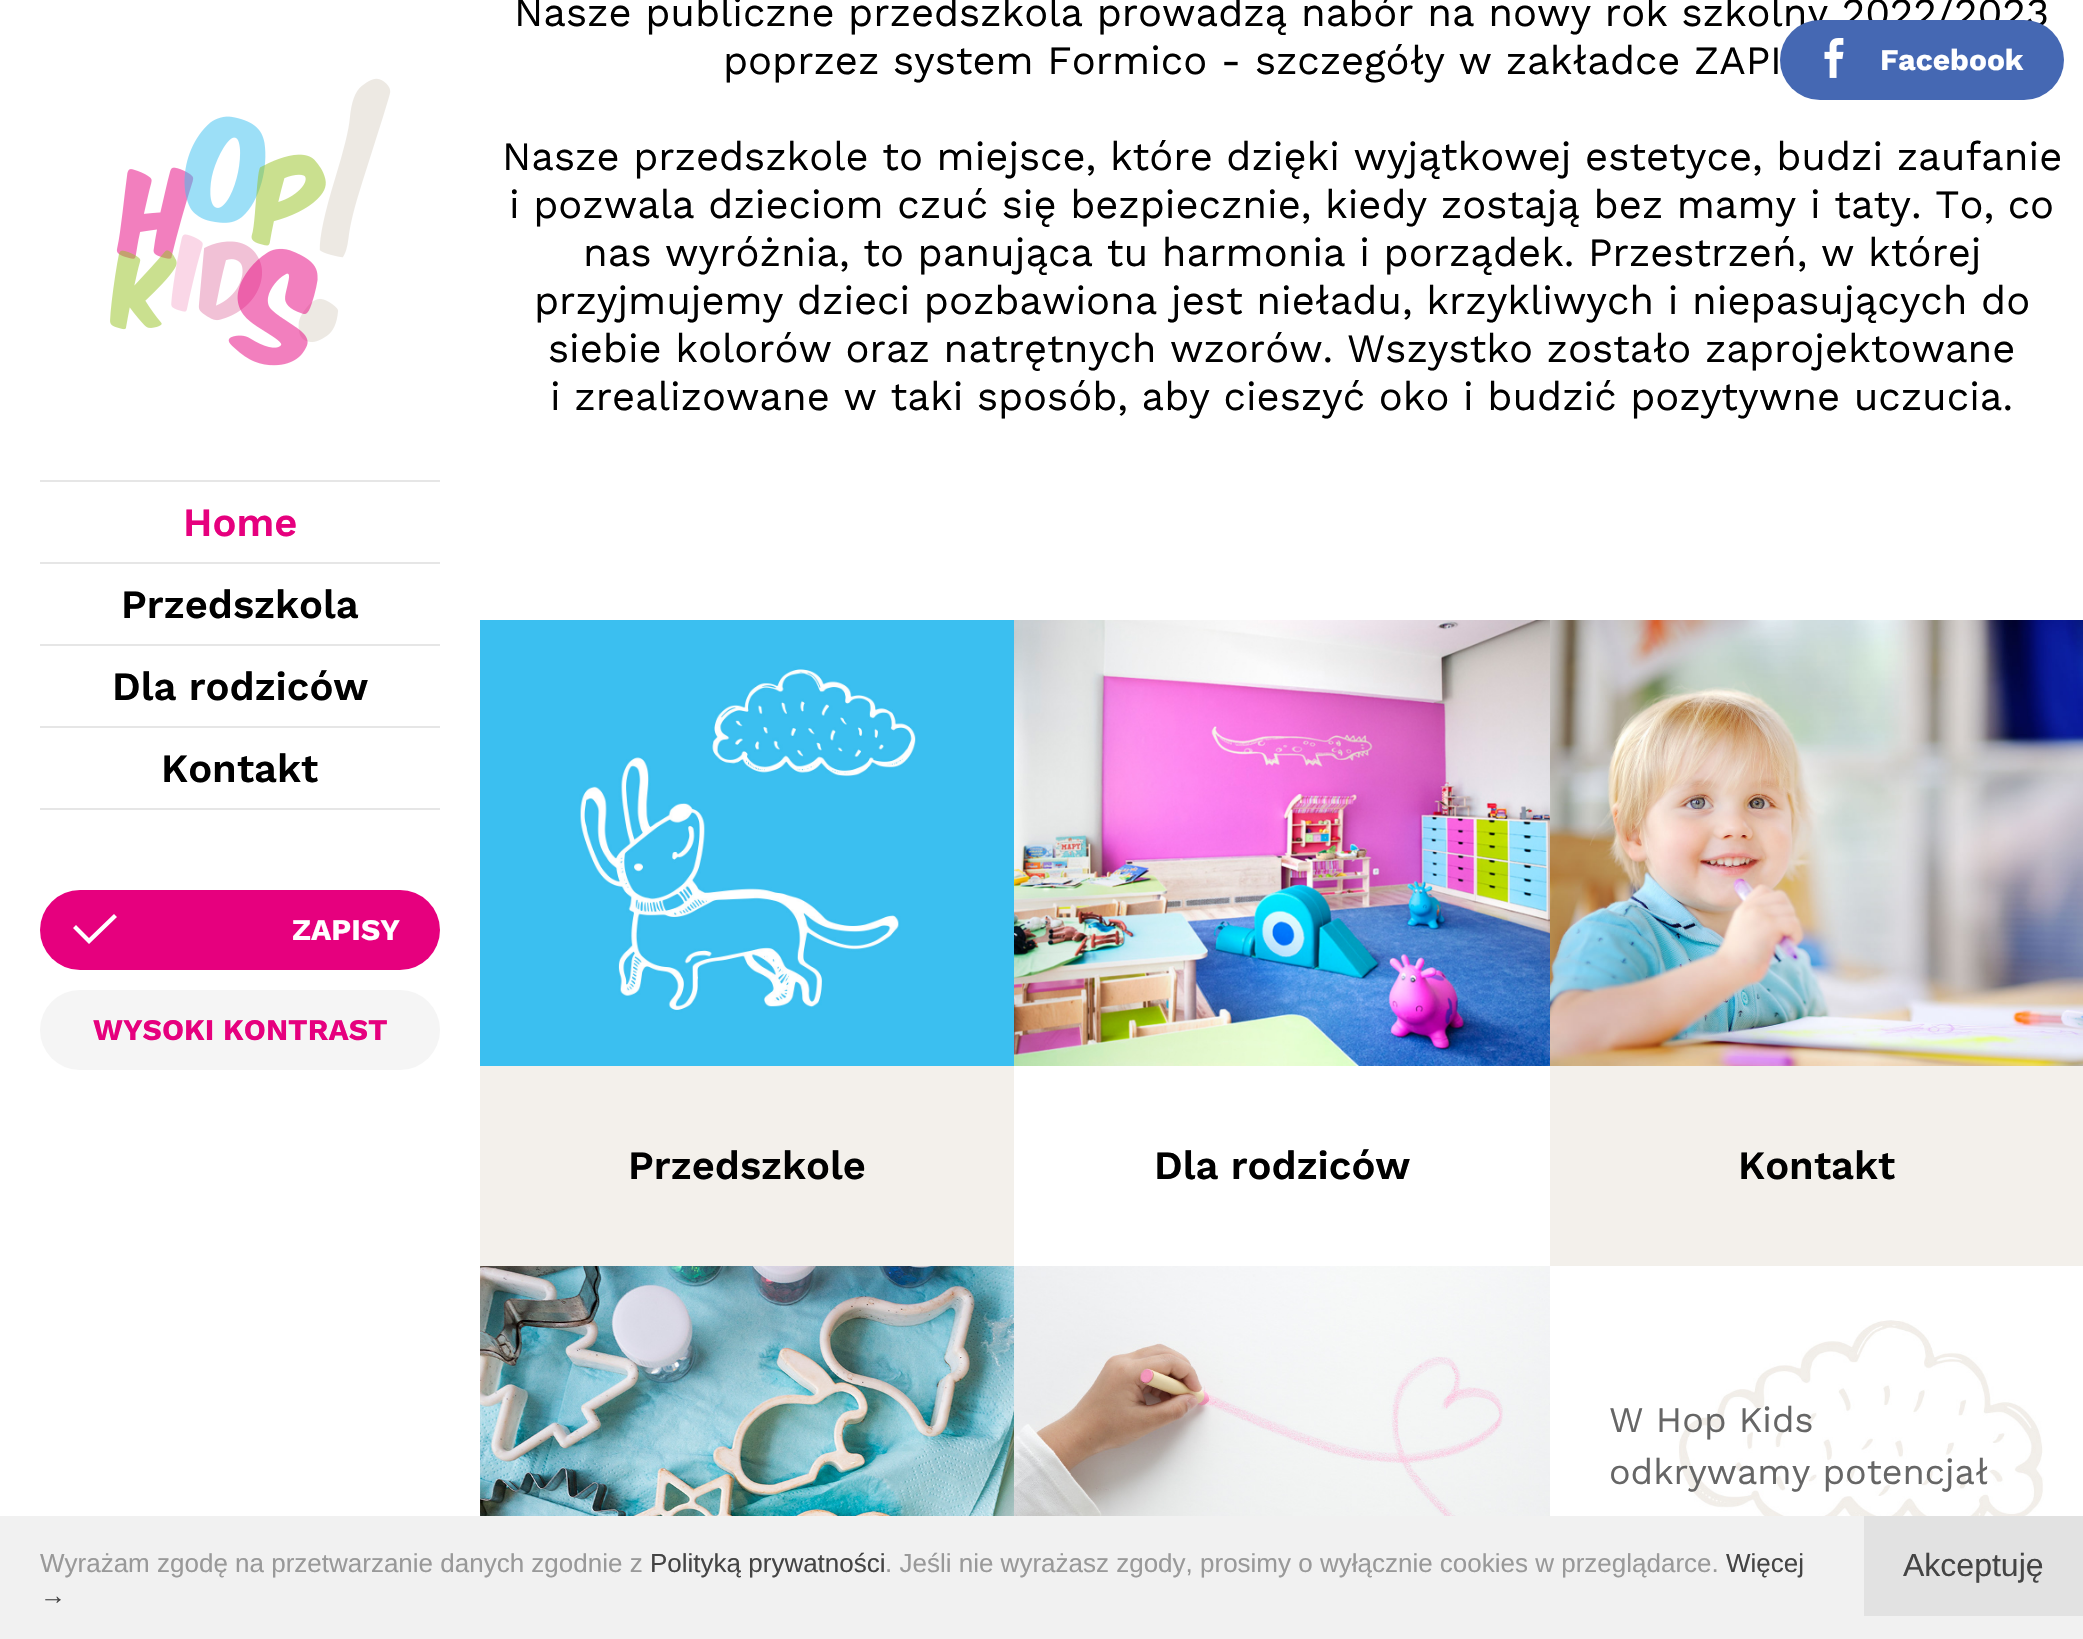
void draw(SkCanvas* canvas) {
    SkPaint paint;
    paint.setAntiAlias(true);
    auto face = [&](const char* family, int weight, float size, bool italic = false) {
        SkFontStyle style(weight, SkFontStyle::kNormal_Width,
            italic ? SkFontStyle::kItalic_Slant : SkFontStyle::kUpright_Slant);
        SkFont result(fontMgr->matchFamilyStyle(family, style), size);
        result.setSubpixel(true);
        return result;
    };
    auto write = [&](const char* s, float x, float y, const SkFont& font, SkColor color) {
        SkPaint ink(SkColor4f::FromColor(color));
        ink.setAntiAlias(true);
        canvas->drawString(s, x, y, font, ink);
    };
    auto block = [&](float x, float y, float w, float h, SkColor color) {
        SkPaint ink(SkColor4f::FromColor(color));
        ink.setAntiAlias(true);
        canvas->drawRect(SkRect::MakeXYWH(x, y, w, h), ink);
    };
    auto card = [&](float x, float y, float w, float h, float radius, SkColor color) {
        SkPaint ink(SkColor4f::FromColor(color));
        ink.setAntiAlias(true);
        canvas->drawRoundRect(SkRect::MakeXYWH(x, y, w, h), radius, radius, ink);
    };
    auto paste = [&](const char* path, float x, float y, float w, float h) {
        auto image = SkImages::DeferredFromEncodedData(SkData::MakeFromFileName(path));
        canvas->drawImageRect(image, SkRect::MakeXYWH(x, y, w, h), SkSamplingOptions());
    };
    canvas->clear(SK_ColorWHITE);
    paste("pic1.png", 110, 78, 281, 288);
    block(40, 808, 400, 2, SkColorSetRGB(230, 230, 230));
    block(40, 480, 400, 2, SkColorSetRGB(230, 230, 230));
    auto kFont1 = face("Work Sans", 600, 40);
    write("Home", 183, 536, kFont1, SkColorSetRGB(230, 0, 126));
    block(40, 562, 400, 2, SkColorSetRGB(230, 230, 230));
    write("Przedszkola", 121, 618, kFont1, SK_ColorBLACK);
    block(40, 644, 400, 2, SkColorSetRGB(230, 230, 230));
    write("Dla rodziców", 112, 700, kFont1, SK_ColorBLACK);
    block(40, 726, 400, 2, SkColorSetRGB(230, 230, 230));
    write("Kontakt", 161, 782, kFont1, SK_ColorBLACK);
    card(40, 890, 400, 80, 40, SkColorSetRGB(230, 0, 126));
    paint.setColor(SK_ColorWHITE);
    canvas->drawPath(SkPathBuilder().moveTo(89, 944).lineTo(73, 928).lineTo(76, 925).lineTo(89, 938).lineTo(114, 914).lineTo(117, 917).close().detach(), paint);
    auto kFont2 = face("Work Sans", 700, 30);
    write("ZAPISY", 292, 940, kFont2, SK_ColorWHITE);
    card(40, 990, 400, 80, 40, SkColorSetRGB(245, 245, 245));
    write("WYSOKI KONTRAST", 93, 1040, kFont2, SkColorSetRGB(230, 0, 126));
    auto kFont3 = face("Work Sans", 400, 40);
    write("Nasze publiczne przedszkola prowadzą nabór na nowy rok szkolny 2022/2023", 514, 26, kFont3, SK_ColorBLACK);
    write("poprzez system Formico - szczegóły w zakładce ZAPI", 723, 74, kFont3, SK_ColorBLACK);
    write("Nasze przedszkole to miejsce, które dzięki wyjątkowej estetyce, budzi zaufanie", 502, 170, kFont3, SK_ColorBLACK);
    write("i pozwala dzieciom czuć się bezpiecznie, kiedy zostają bez mamy i taty. To, co", 509, 218, kFont3, SK_ColorBLACK);
    write("nas wyróżnia, to panująca tu harmonia i porządek. Przestrzeń, w której", 583, 266, kFont3, SK_ColorBLACK);
    write("przyjmujemy dzieci pozbawiona jest nieładu, krzykliwych i niepasujących do", 534, 314, kFont3, SK_ColorBLACK);
    write("siebie kolorów oraz natrętnych wzorów. Wszystko zostało zaprojektowane", 548, 362, kFont3, SK_ColorBLACK);
    write("i zrealizowane w taki sposób, aby cieszyć oko i budzić pozytywne uczucia.", 550, 410, kFont3, SK_ColorBLACK);
    paste("pic2.png", 480, 620, 534, 446);
    block(480, 1066, 534, 200, SkColorSetRGB(243, 240, 235));
    write("Przedszkole", 628, 1179, kFont1, SK_ColorBLACK);
    paste("pic3.png", 1014, 620, 536, 446);
    write("Dla rodziców", 1154, 1179, kFont1, SK_ColorBLACK);
    paste("pic4.png", 1550, 620, 533, 446);
    block(1550, 1066, 533, 200, SkColorSetRGB(243, 240, 235));
    write("Kontakt", 1738, 1179, kFont1, SK_ColorBLACK);
    paste("pic5.png", 480, 1266, 534, 250);
    paste("pic6.png", 1014, 1266, 536, 250);
    paste("pic7.png", 1586, 1320, 458, 196);
    auto kFont4 = face("Work Sans", 400, 36);
    write("W Hop Kids", 1609, 1432, kFont4, SkColorSetRGB(102, 102, 102));
    write("odkrywamy potencjał", 1609, 1484, kFont4, SkColorSetRGB(102, 102, 102));
    card(1780, 20, 284, 80, 40, SkColorSetRGB(69, 104, 179));
    paste("pic8.png", 1824, 38, 20, 40);
    write("Facebook", 1880, 70, kFont2, SK_ColorWHITE);
    block(0, 1516, 2083, 123, SkColorSetRGB(241, 241, 241));
    auto kFont5 = face("Liberation Sans", 400, 26);
    write("Wyrażam zgodę na przetwarzanie danych zgodnie z", 40, 1572, kFont5, SkColorSetRGB(153, 153, 153));
    write("Polityką prywatności", 650, 1572, kFont5, SkColorSetRGB(68, 68, 68));
    write(". Jeśli nie wyrażasz zgody, prosimy o wyłącznie cookies w przeglądarce.", 885, 1572, kFont5, SkColorSetRGB(153, 153, 153));
    write("Więcej", 1726, 1572, kFont5, SkColorSetRGB(68, 68, 68));
    write("→", 40, 1604, kFont5, SkColorSetRGB(68, 68, 68));
    block(1864, 1516, 219, 100, SkColorSetRGB(226, 226, 226));
    auto kFont6 = face("Liberation Sans", 400, 32);
    write("Akceptuję", 1903, 1576, kFont6, SkColorSetRGB(68, 68, 68));
}
